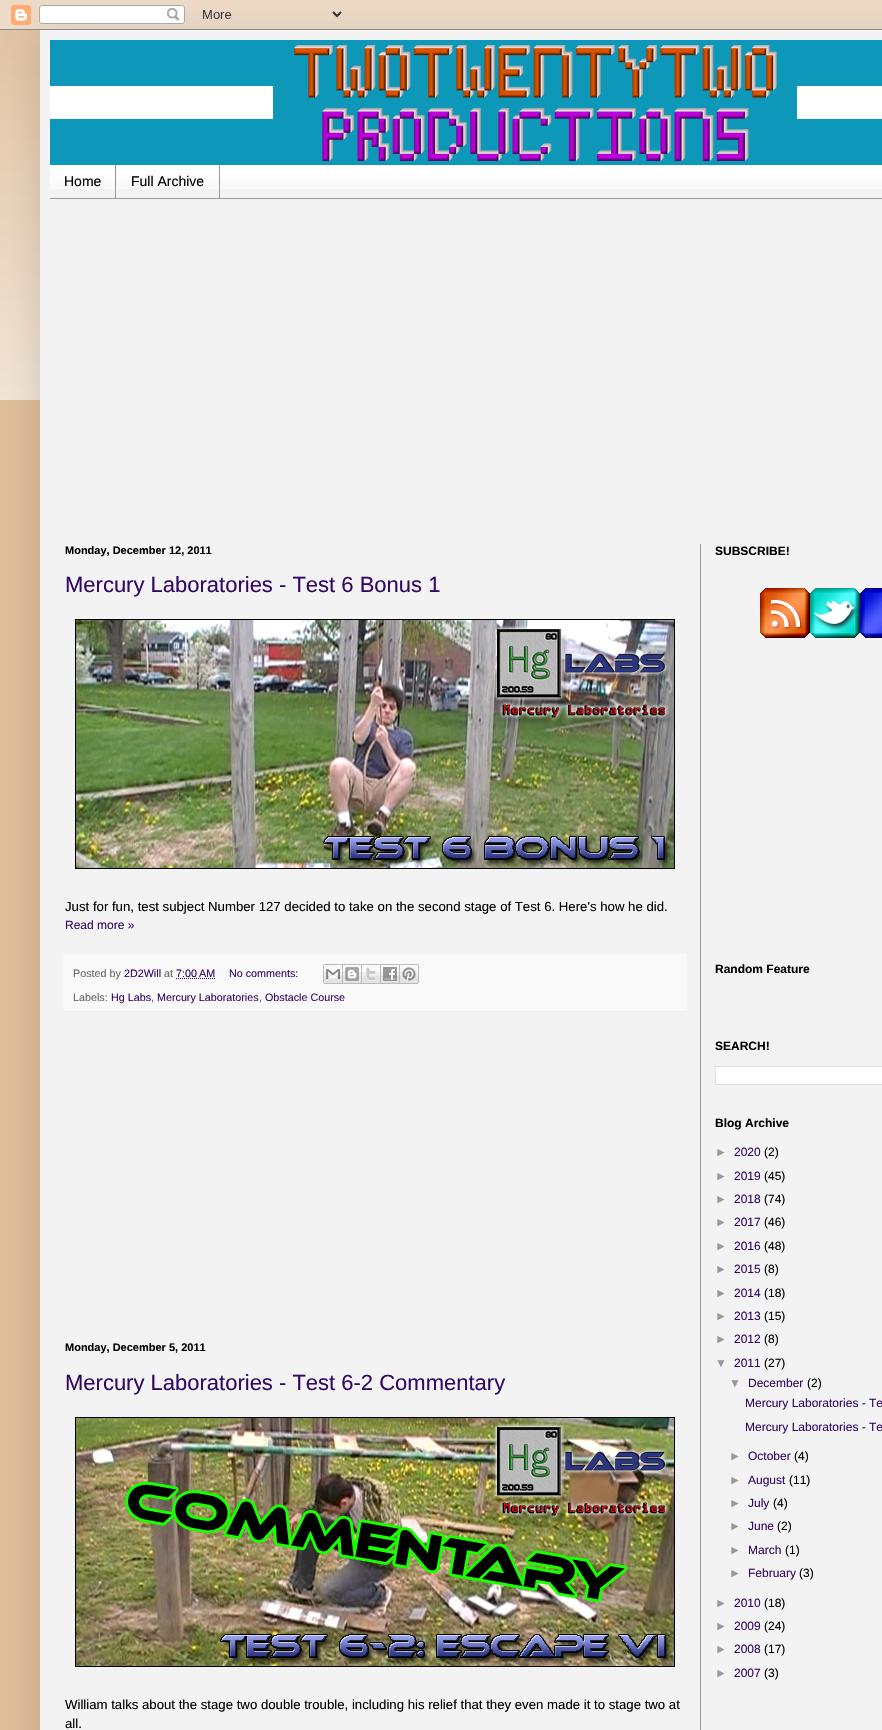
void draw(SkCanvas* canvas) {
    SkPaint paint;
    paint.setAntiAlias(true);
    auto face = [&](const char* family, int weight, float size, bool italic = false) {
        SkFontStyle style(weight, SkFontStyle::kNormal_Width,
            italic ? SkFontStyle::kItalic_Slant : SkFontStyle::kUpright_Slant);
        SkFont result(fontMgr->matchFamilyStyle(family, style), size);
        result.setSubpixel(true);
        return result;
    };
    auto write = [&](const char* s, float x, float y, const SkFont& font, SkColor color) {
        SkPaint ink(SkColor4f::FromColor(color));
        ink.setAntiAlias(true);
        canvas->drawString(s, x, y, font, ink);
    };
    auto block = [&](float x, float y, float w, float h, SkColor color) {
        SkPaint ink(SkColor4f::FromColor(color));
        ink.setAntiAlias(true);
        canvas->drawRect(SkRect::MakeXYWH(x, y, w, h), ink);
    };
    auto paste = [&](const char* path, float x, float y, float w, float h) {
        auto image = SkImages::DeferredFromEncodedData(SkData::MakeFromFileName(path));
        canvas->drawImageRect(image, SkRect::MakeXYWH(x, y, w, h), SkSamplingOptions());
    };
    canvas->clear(SkColorSetRGB(224, 191, 155));
    paste("pic1.png", 0, 0, 882, 400);
    paint.setColor(SkColorSetARGB(38, 0, 0, 0));
    paint.setMaskFilter(SkMaskFilter::MakeBlur(kNormal_SkBlurStyle, 20));
    canvas->drawRect(SkRect::MakeXYWH(40, 30, 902, 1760), paint);
    paint.setMaskFilter(nullptr);
    paste("pic2.png", 0, 0, 882, 30);
    block(40, 30, 842, 1700, SkColorSetRGB(243, 243, 243));
    paste("pic3.png", 50, 40, 832, 125);
    paste("pic4.png", 50, 165, 832, 24);
    block(50, 198, 832, 1, SkColorSetRGB(153, 153, 153));
    block(115, 165, 1, 33, SkColorSetRGB(153, 153, 153));
    auto kFont1 = face("Liberation Sans", 400, 14);
    write("Home", 64, 186, kFont1, SK_ColorBLACK);
    block(219, 165, 1, 33, SkColorSetRGB(153, 153, 153));
    block(116, 165, 1, 24, SkColorSetRGB(243, 243, 243));
    write("Full Archive", 131, 186, kFont1, SK_ColorBLACK);
    block(700, 544, 1, 1186, SkColorSetRGB(153, 153, 153));
    auto kFont2 = face("Liberation Sans", 700, 11);
    write("Monday, December 12, 2011", 65, 554, kFont2, SK_ColorBLACK);
    auto kFont3 = face("Liberation Sans", 400, 22);
    write("Mercury Laboratories - Test 6 Bonus 1", 65, 592, kFont3, SkColorSetRGB(50, 8, 102));
    paste("pic5.png", 75, 619, 600, 250);
    auto kFont4 = face("Liberation Sans", 400, 13.2f);
    write("Just for fun, test subject Number 127 decided to take on the second stage of Test 6. Here's how he did.", 65, 911, kFont4, SK_ColorBLACK);
    auto kFont5 = face("Liberation Sans", 400, 12);
    write("Read more »", 65, 929, kFont5, SkColorSetRGB(50, 8, 102));
    block(63, 954, 624, 57, SkColorSetRGB(249, 249, 249));
    block(63, 1011, 624, 1, SkColorSetRGB(238, 238, 238));
    auto kFont6 = face("Liberation Sans", 400, 10.75f);
    write("Posted by", 73, 977, kFont6, SkColorSetRGB(102, 102, 102));
    write("2D2Will", 124, 977, kFont6, SkColorSetRGB(50, 8, 102));
    write("at", 164, 977, kFont6, SkColorSetRGB(102, 102, 102));
    write("7:00 AM", 176, 977, kFont6, SkColorSetRGB(50, 8, 102));
    paint.setStyle(SkPaint::kStroke_Style);
    paint.setStrokeWidth(1);
    paint.setColor(SkColorSetRGB(50, 8, 102));
    paint.setPathEffect(SkDashPathEffect::Make({{1, 1}}, 0));
    canvas->drawPath(SkPathBuilder().moveTo(176, 978.5f).lineTo(215.5f, 978.5f).detach(), paint);
    paint.setPathEffect(nullptr);
    write("No comments:", 229, 977, kFont6, SkColorSetRGB(50, 8, 102));
    paste("pic6.png", 323, 964, 20, 20);
    paste("pic7.png", 343, 964, 19, 20);
    paste("pic8.png", 362, 964, 19, 20);
    paste("pic9.png", 381, 964, 19, 20);
    paste("pic10.png", 400, 964, 19, 20);
    write("Labels:", 73, 1001, kFont6, SkColorSetRGB(102, 102, 102));
    write("Hg Labs", 111, 1001, kFont6, SkColorSetRGB(50, 8, 102));
    write(",", 151, 1001, kFont6, SkColorSetRGB(102, 102, 102));
    write("Mercury Laboratories", 157, 1001, kFont6, SkColorSetRGB(50, 8, 102));
    write(",", 259, 1001, kFont6, SkColorSetRGB(102, 102, 102));
    write("Obstacle Course", 265, 1001, kFont6, SkColorSetRGB(50, 8, 102));
    write("Monday, December 5, 2011", 65, 1351, kFont2, SK_ColorBLACK);
    write("Mercury Laboratories - Test 6-2 Commentary", 65, 1390, kFont3, SkColorSetRGB(50, 8, 102));
    paste("pic11.png", 75, 1417, 600, 250);
    write("William talks about the stage two double trouble, including his relief that they even made it to stage two at", 65, 1709, kFont4, SK_ColorBLACK);
    write("all.", 65, 1728, kFont4, SK_ColorBLACK);
    auto kFont7 = face("Liberation Sans", 700, 12);
    write("SUBSCRIBE!", 715, 555, kFont7, SK_ColorBLACK);
    paste("pic12.png", 760, 588, 50, 50);
    paste("pic13.png", 810, 588, 50, 50);
    paste("pic14.png", 860, 588, 22, 50);
    write("Random Feature", 715, 973, kFont7, SK_ColorBLACK);
    write("SEARCH!", 715, 1050, kFont7, SK_ColorBLACK);
    paint.setStyle(SkPaint::kFill_Style);
    paint.setColor(SK_ColorWHITE);
    canvas->drawRect(SkRect::MakeXYWH(715.5f, 1066.5f, 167, 18), paint);
    paint.setStyle(SkPaint::kStroke_Style);
    paint.setColor(SkColorSetRGB(221, 221, 221));
    canvas->drawRect(SkRect::MakeXYWH(715.5f, 1066.5f, 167, 18), paint);
    write("Blog Archive", 715, 1127, kFont7, SK_ColorBLACK);
    write("►", 715, 1156, kFont5, SkColorSetRGB(153, 153, 153));
    write("2020", 734, 1156, kFont5, SkColorSetRGB(50, 8, 102));
    write("(2)", 764, 1156, kFont5, SK_ColorBLACK);
    write("►", 715, 1180, kFont5, SkColorSetRGB(153, 153, 153));
    write("2019", 734, 1180, kFont5, SkColorSetRGB(50, 8, 102));
    write("(45)", 764, 1180, kFont5, SK_ColorBLACK);
    write("►", 715, 1203, kFont5, SkColorSetRGB(153, 153, 153));
    write("2018", 734, 1203, kFont5, SkColorSetRGB(50, 8, 102));
    write("(74)", 764, 1203, kFont5, SK_ColorBLACK);
    write("►", 715, 1226, kFont5, SkColorSetRGB(153, 153, 153));
    write("2017", 734, 1226, kFont5, SkColorSetRGB(50, 8, 102));
    write("(46)", 764, 1226, kFont5, SK_ColorBLACK);
    write("►", 715, 1250, kFont5, SkColorSetRGB(153, 153, 153));
    write("2016", 734, 1250, kFont5, SkColorSetRGB(50, 8, 102));
    write("(48)", 764, 1250, kFont5, SK_ColorBLACK);
    write("►", 715, 1273, kFont5, SkColorSetRGB(153, 153, 153));
    write("2015", 734, 1273, kFont5, SkColorSetRGB(50, 8, 102));
    write("(8)", 764, 1273, kFont5, SK_ColorBLACK);
    write("►", 715, 1297, kFont5, SkColorSetRGB(153, 153, 153));
    write("2014", 734, 1297, kFont5, SkColorSetRGB(50, 8, 102));
    write("(18)", 764, 1297, kFont5, SK_ColorBLACK);
    write("►", 715, 1320, kFont5, SkColorSetRGB(153, 153, 153));
    write("2013", 734, 1320, kFont5, SkColorSetRGB(50, 8, 102));
    write("(15)", 764, 1320, kFont5, SK_ColorBLACK);
    write("►", 715, 1343, kFont5, SkColorSetRGB(153, 153, 153));
    write("2012", 734, 1343, kFont5, SkColorSetRGB(50, 8, 102));
    write("(8)", 764, 1343, kFont5, SK_ColorBLACK);
    write("▼", 715, 1367, kFont5, SkColorSetRGB(153, 153, 153));
    write("2011", 734, 1367, kFont5, SkColorSetRGB(50, 8, 102));
    write("(27)", 764, 1367, kFont5, SK_ColorBLACK);
    write("▼", 729, 1387, kFont5, SkColorSetRGB(153, 153, 153));
    write("December", 748, 1387, kFont5, SkColorSetRGB(50, 8, 102));
    write("(2)", 807, 1387, kFont5, SK_ColorBLACK);
    write("Mercury Laboratories - Te", 745, 1407, kFont5, SkColorSetRGB(50, 8, 102));
    write("Mercury Laboratories - Te", 745, 1431, kFont5, SkColorSetRGB(50, 8, 102));
    write("►", 729, 1460, kFont5, SkColorSetRGB(153, 153, 153));
    write("October", 748, 1460, kFont5, SkColorSetRGB(50, 8, 102));
    write("(4)", 794, 1460, kFont5, SK_ColorBLACK);
    write("►", 729, 1484, kFont5, SkColorSetRGB(153, 153, 153));
    write("August", 748, 1484, kFont5, SkColorSetRGB(50, 8, 102));
    write("(11)", 789, 1484, kFont5, SK_ColorBLACK);
    write("►", 729, 1507, kFont5, SkColorSetRGB(153, 153, 153));
    write("July", 748, 1507, kFont5, SkColorSetRGB(50, 8, 102));
    write("(4)", 773, 1507, kFont5, SK_ColorBLACK);
    write("►", 729, 1530, kFont5, SkColorSetRGB(153, 153, 153));
    write("June", 748, 1530, kFont5, SkColorSetRGB(50, 8, 102));
    write("(2)", 777, 1530, kFont5, SK_ColorBLACK);
    write("►", 729, 1554, kFont5, SkColorSetRGB(153, 153, 153));
    write("March", 748, 1554, kFont5, SkColorSetRGB(50, 8, 102));
    write("(1)", 785, 1554, kFont5, SK_ColorBLACK);
    write("►", 729, 1577, kFont5, SkColorSetRGB(153, 153, 153));
    write("February", 748, 1577, kFont5, SkColorSetRGB(50, 8, 102));
    write("(3)", 799, 1577, kFont5, SK_ColorBLACK);
    write("►", 715, 1607, kFont5, SkColorSetRGB(153, 153, 153));
    write("2010", 734, 1607, kFont5, SkColorSetRGB(50, 8, 102));
    write("(18)", 764, 1607, kFont5, SK_ColorBLACK);
    write("►", 715, 1630, kFont5, SkColorSetRGB(153, 153, 153));
    write("2009", 734, 1630, kFont5, SkColorSetRGB(50, 8, 102));
    write("(24)", 764, 1630, kFont5, SK_ColorBLACK);
    write("►", 715, 1653, kFont5, SkColorSetRGB(153, 153, 153));
    write("2008", 734, 1653, kFont5, SkColorSetRGB(50, 8, 102));
    write("(17)", 764, 1653, kFont5, SK_ColorBLACK);
    write("►", 715, 1677, kFont5, SkColorSetRGB(153, 153, 153));
    write("2007", 734, 1677, kFont5, SkColorSetRGB(50, 8, 102));
    write("(3)", 764, 1677, kFont5, SK_ColorBLACK);
}
